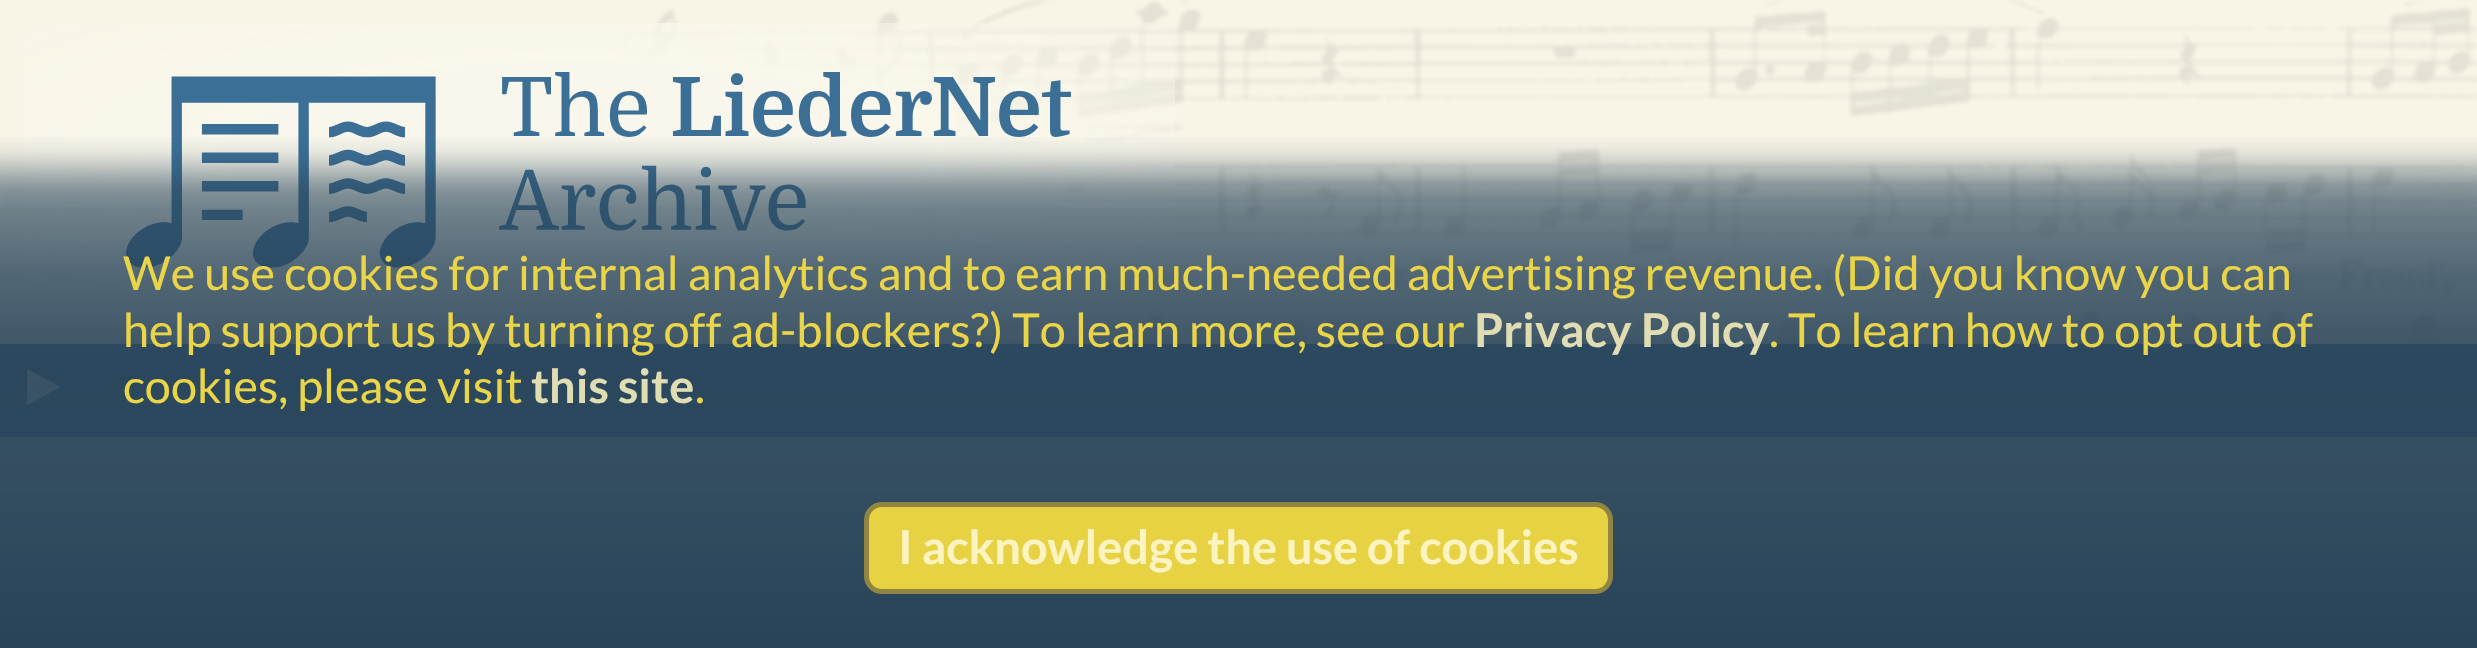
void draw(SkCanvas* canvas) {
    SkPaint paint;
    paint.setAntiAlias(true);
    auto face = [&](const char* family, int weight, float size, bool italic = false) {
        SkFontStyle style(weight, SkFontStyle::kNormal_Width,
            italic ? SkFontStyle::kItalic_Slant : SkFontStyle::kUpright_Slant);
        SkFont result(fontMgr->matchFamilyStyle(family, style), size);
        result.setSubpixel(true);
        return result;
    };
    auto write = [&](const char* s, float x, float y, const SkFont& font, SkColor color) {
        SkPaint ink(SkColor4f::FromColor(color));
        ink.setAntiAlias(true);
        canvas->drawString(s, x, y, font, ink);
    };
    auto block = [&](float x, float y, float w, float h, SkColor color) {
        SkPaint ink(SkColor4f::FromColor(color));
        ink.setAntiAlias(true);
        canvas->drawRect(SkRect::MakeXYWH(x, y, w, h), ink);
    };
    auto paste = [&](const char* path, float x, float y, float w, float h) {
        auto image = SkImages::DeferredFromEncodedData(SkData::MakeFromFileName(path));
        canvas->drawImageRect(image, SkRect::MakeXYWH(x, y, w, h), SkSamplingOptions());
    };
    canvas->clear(SkColorSetRGB(254, 253, 253));
    block(0, 0, 2477, 344, SkColorSetRGB(248, 245, 231));
    paste("pic2.png", 607, 0, 1870, 442);
    {
        const SkColor colors[] = {SkColorSetARGB(247, 249, 247, 235), SkColorSetARGB(0, 249, 247, 235)};
        const float stops[] = {0.4f, 1};
        SkMatrix m = SkMatrix::Translate(575, 157).preScale(847, 233);
        paint.setShader(SkGradientShader::MakeRadial({0, 0}, 1, colors, stops, 2, SkTileMode::kClamp, 0, &m));
        paint.setAlpha(255);
    }
    canvas->drawRect(SkRect::MakeXYWH(23, 23, 1152, 299), paint);
    paste("pic1.png", 126, 72, 945, 196);
    block(0, 344, 2477, 93, SkColorSetARGB(247, 59, 111, 150));
    paint.setShader(nullptr);
    paint.setColor(SkColorSetRGB(248, 245, 232));
    canvas->drawPath(SkPathBuilder().moveTo(27, 369).lineTo(27, 405).lineTo(61, 387).close().detach(), paint);
    canvas->save();
    canvas->clipRect(SkRect::MakeXYWH(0, 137, 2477, 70));
    paint.setColor(SkColorSetARGB(166, 40, 67, 88));
    paint.setMaskFilter(SkMaskFilter::MakeBlur(kNormal_SkBlurStyle, 18));
    canvas->drawRect(SkRect::MakeXYWH(-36, 171, 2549, 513), paint);
    paint.setMaskFilter(nullptr);
    canvas->restore();
    {
        const SkColor colors[] = {SkColorSetRGB(40, 67, 88), SkColorSetARGB(232, 40, 67, 88), SkColorSetARGB(204, 40, 67, 88), SkColorSetARGB(166, 40, 67, 88)};
        const float stops[] = {0, 0.65f, 0.85f, 1};
        const SkPoint ends[] = {{1239, 648}, {1239, 207}};
        paint.setShader(SkGradientShader::MakeLinear(ends, colors, stops, 4, SkTileMode::kClamp));
        paint.setAlpha(255);
    }
    canvas->drawRect(SkRect::MakeXYWH(0, 207, 2477, 441), paint);
    auto kFont1 = face("Lato", 400, 46.8f);
    write("We use cookies for internal analytics and to earn much-needed advertising revenue. (Did you know you can", 123, 290, kFont1, SkColorSetRGB(234, 212, 71));
    write("help support us by turning off ad-blockers?) To learn more, see our", 123, 347, kFont1, SkColorSetRGB(234, 212, 71));
    auto kFont2 = face("Lato", 700, 46.8f);
    write("Privacy Policy", 1474, 347, kFont2, SkColorSetRGB(224, 221, 179));
    write(". To learn how to opt out of", 1769, 347, kFont1, SkColorSetRGB(234, 212, 71));
    write("cookies, please visit", 123, 403, kFont1, SkColorSetRGB(234, 212, 71));
    write("this site", 531, 403, kFont2, SkColorSetRGB(224, 221, 179));
    write(".", 695, 403, kFont1, SkColorSetRGB(234, 212, 71));
    paint.setShader(nullptr);
    paint.setColor(SkColorSetARGB(242, 240, 217, 66));
    canvas->drawRoundRect(SkRect::MakeXYWH(866.5f, 504.5f, 744, 87), 15.5f, 15.5f, paint);
    paint.setStyle(SkPaint::kStroke_Style);
    paint.setStrokeWidth(5);
    paint.setColor(SkColorSetRGB(144, 134, 65));
    canvas->drawRoundRect(SkRect::MakeXYWH(866.5f, 504.5f, 744, 87), 15.5f, 15.5f, paint);
    write("I acknowledge the use of cookies", 898, 564, kFont2, SkColorSetRGB(252, 244, 192));
}
